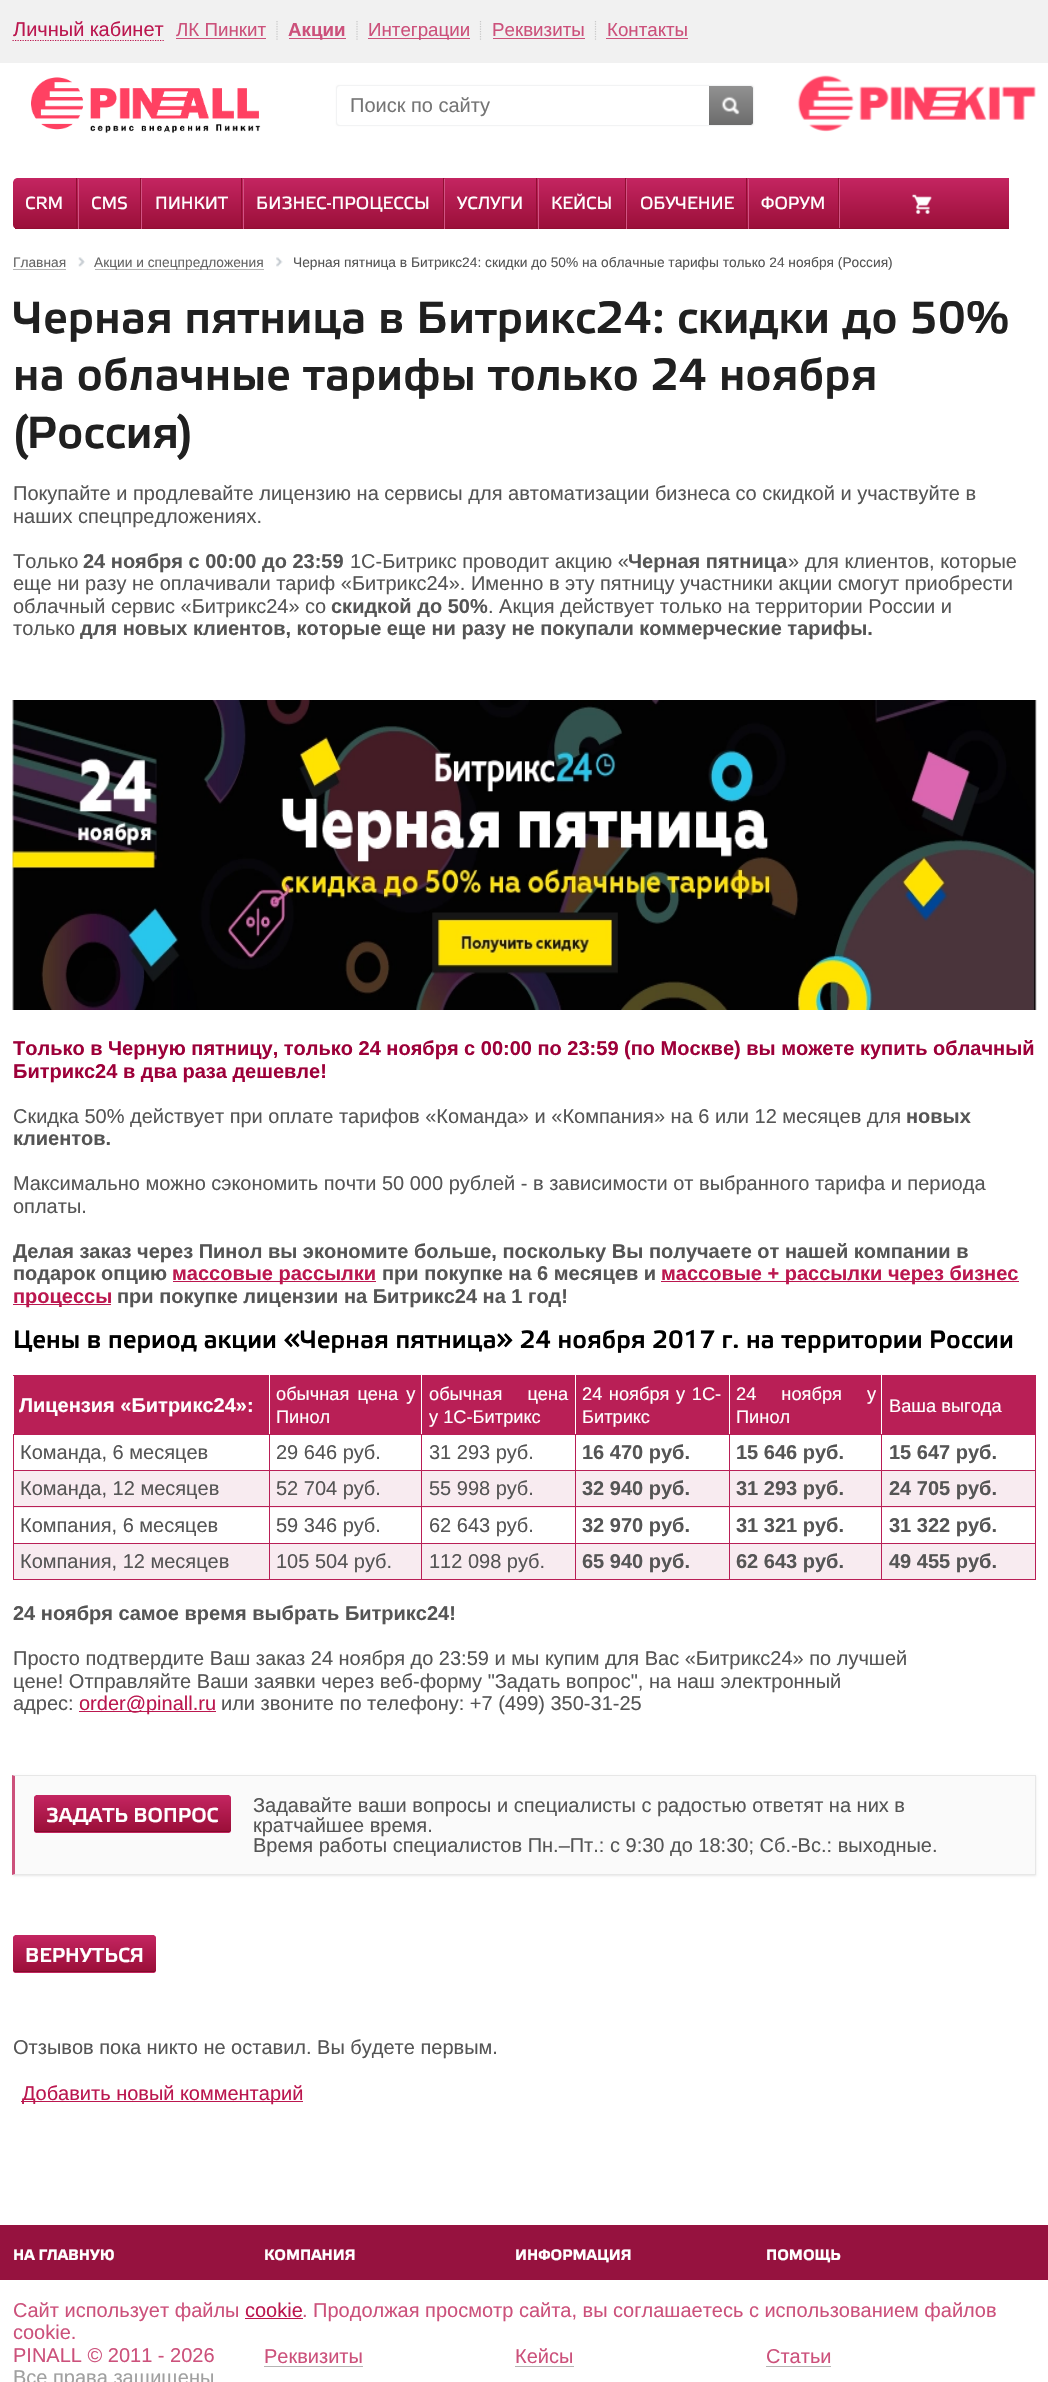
void draw(SkCanvas* canvas) {
    SkPaint paint;
    paint.setAntiAlias(true);
    auto face = [&](const char* family, int weight, float size, bool italic = false) {
        SkFontStyle style(weight, SkFontStyle::kNormal_Width,
            italic ? SkFontStyle::kItalic_Slant : SkFontStyle::kUpright_Slant);
        SkFont result(fontMgr->matchFamilyStyle(family, style), size);
        result.setSubpixel(true);
        return result;
    };
    auto write = [&](const char* s, float x, float y, const SkFont& font, SkColor color) {
        SkPaint ink(SkColor4f::FromColor(color));
        ink.setAntiAlias(true);
        canvas->drawString(s, x, y, font, ink);
    };
    auto writeSpaced = [&](const char* s, float x, float y, const SkFont& font, const SkPaint& ink, float letter, float word) {
        std::vector<SkGlyphID> glyphs(font.countText(s, strlen(s), SkTextEncoding::kUTF8));
        std::vector<float> xs(glyphs.size());
        font.textToGlyphs(s, strlen(s), SkTextEncoding::kUTF8, glyphs);
        font.getXPos(glyphs, xs, x);
        float extra = 0;
        for (size_t i = 0; i < glyphs.size(); i++) {
            xs[i] += extra;
            extra += letter + word * (glyphs[i] == font.unicharToGlyph(' '));
        }
        canvas->drawTextBlob(SkTextBlob::MakeFromPosHGlyphs(glyphs, xs, y, font), 0, 0, ink);
    };
    auto block = [&](float x, float y, float w, float h, SkColor color) {
        SkPaint ink(SkColor4f::FromColor(color));
        ink.setAntiAlias(true);
        canvas->drawRect(SkRect::MakeXYWH(x, y, w, h), ink);
    };
    auto paste = [&](const char* path, float x, float y, float w, float h) {
        auto image = SkImages::DeferredFromEncodedData(SkData::MakeFromFileName(path));
        canvas->drawImageRect(image, SkRect::MakeXYWH(x, y, w, h), SkSamplingOptions());
    };
    canvas->clear(SK_ColorWHITE);
    block(0, 0, 1048, 63, SkColorSetRGB(241, 241, 241));
    auto kFont1 = face("Liberation Sans", 400, 20);
    write("Личный кабинет", 13, 36, kFont1, SkColorSetRGB(187, 23, 79));
    paint.setStyle(SkPaint::kStroke_Style);
    paint.setStrokeWidth(1.2f);
    paint.setColor(SkColorSetRGB(187, 23, 79));
    paint.setPathEffect(SkDashPathEffect::Make({{1.25f, 1.25f}}, 0));
    canvas->drawPath(SkPathBuilder().moveTo(12.5f, 40.5f).lineTo(164, 40.5f).detach(), paint);
    paint.setPathEffect(nullptr);
    auto kFont2 = face("Liberation Sans", 400, 18.75f);
    write("ЛК Пинкит", 176, 36, kFont2, SkColorSetRGB(204, 81, 123));
    block(176, 38, 90, 1, SkColorSetRGB(204, 81, 123));
    paint.setColor(SkColorSetRGB(200, 200, 200));
    paint.setPathEffect(SkDashPathEffect::Make({{1.25f, 1.25f}}, 0));
    canvas->drawPath(SkPathBuilder().moveTo(277, 21).lineTo(277, 40).detach(), paint);
    paint.setPathEffect(nullptr);
    block(289, 38, 57, 1, SkColorSetRGB(204, 81, 123));
    auto kFont3 = face("Liberation Sans", 700, 18.75f);
    write("Акции", 288, 36, kFont3, SkColorSetRGB(204, 81, 123));
    paint.setPathEffect(SkDashPathEffect::Make({{1.25f, 1.25f}}, 0));
    canvas->drawPath(SkPathBuilder().moveTo(357, 21).lineTo(357, 40).detach(), paint);
    paint.setPathEffect(nullptr);
    block(368, 38, 102, 1, SkColorSetRGB(204, 81, 123));
    write("Интеграции", 368, 36, kFont2, SkColorSetRGB(204, 81, 123));
    paint.setPathEffect(SkDashPathEffect::Make({{1.25f, 1.25f}}, 0));
    canvas->drawPath(SkPathBuilder().moveTo(480.5f, 21).lineTo(480.5f, 40).detach(), paint);
    paint.setPathEffect(nullptr);
    write("Реквизиты", 492, 36, kFont2, SkColorSetRGB(204, 81, 123));
    block(493, 38, 92, 1, SkColorSetRGB(204, 81, 123));
    paint.setPathEffect(SkDashPathEffect::Make({{1.25f, 1.25f}}, 0));
    canvas->drawPath(SkPathBuilder().moveTo(595.5f, 21).lineTo(595.5f, 40).detach(), paint);
    paint.setPathEffect(nullptr);
    write("Контакты", 607, 36, kFont2, SkColorSetRGB(204, 81, 123));
    block(606, 38, 82, 1, SkColorSetRGB(204, 81, 123));
    paste("pic1.png", 31, 77, 230, 56);
    paint.setStyle(SkPaint::kFill_Style);
    paint.setColor(SkColorSetRGB(237, 237, 237));
    paint.setMaskFilter(SkMaskFilter::MakeBlur(kNormal_SkBlurStyle, 0.5f));
    canvas->drawRoundRect(SkRect::MakeXYWH(336, 85, 418, 41), 4, 4, paint);
    paint.setMaskFilter(nullptr);
    paint.setColor(SK_ColorWHITE);
    canvas->drawRoundRect(SkRect::MakeXYWH(336.5f, 85.5f, 417, 40), 3.5f, 3.5f, paint);
    paint.setStyle(SkPaint::kStroke_Style);
    paint.setStrokeWidth(1);
    paint.setColor(SkColorSetRGB(242, 243, 244));
    canvas->drawRoundRect(SkRect::MakeXYWH(336.5f, 85.5f, 417, 40), 3.5f, 3.5f, paint);
    write("Поиск по сайту", 350, 112, kFont1, SkColorSetRGB(117, 117, 117));
    paint.setStyle(SkPaint::kFill_Style);
    {
        const SkColor colors[] = {SkColorSetRGB(145, 145, 145), SkColorSetRGB(108, 108, 108)};
        const float stops[] = {0, 1};
        const SkPoint ends[] = {{731, 86}, {731, 125}};
        paint.setShader(SkGradientShader::MakeLinear(ends, colors, stops, 2, SkTileMode::kClamp));
        paint.setAlpha(255);
    }
    canvas->drawPath(SkPathBuilder().moveTo(709, 86).lineTo(750.5f, 86).cubicTo(752, 86, 753, 87, 753, 88.5f).lineTo(753, 122.5f).cubicTo(753, 124, 752, 125, 750.5f, 125).lineTo(709, 125).close().detach(), paint);
    paste("pic2.png", 721, 96, 19, 19);
    paste("pic3.png", 797, 75, 239, 57);
    canvas->save();
    canvas->clipPath(SkPathBuilder().moveTo(17, 178).lineTo(78, 178).lineTo(78, 229).lineTo(17, 229).cubicTo(15, 229, 13, 227, 13, 225).lineTo(13, 182).cubicTo(13, 180, 15, 178, 17, 178).close().detach(), true);
    {
        const SkColor colors[] = {SkColorSetRGB(196, 37, 97), SkColorSetRGB(155, 15, 57)};
        const float stops[] = {0, 1};
        const SkPoint ends[] = {{44, 178}, {44, 228}};
        paint.setShader(SkGradientShader::MakeLinear(ends, colors, stops, 2, SkTileMode::kClamp));
        paint.setAlpha(255);
    }
    canvas->drawPath(SkPathBuilder().moveTo(17, 178).lineTo(78, 178).lineTo(78, 228).lineTo(13, 228).lineTo(13, 182).cubicTo(13, 180, 15, 178, 17, 178).close().detach(), paint);
    canvas->restore();
    block(76, 178, 1, 51, SkColorSetRGB(145, 14, 50));
    block(15, 228, 63, 1, SkColorSetRGB(145, 14, 50));
    auto kFont4 = face("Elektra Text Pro", 400, 17.5f);
    write("CRM", 25, 209, kFont4, SK_ColorWHITE);
    {
        const SkColor colors[] = {SkColorSetRGB(196, 37, 97), SkColorSetRGB(155, 15, 57)};
        const float stops[] = {0, 1};
        const SkPoint ends[] = {{109, 178}, {109, 228}};
        paint.setShader(SkGradientShader::MakeLinear(ends, colors, stops, 2, SkTileMode::kClamp));
        paint.setAlpha(255);
    }
    canvas->drawRect(SkRect::MakeXYWH(78, 178, 62, 50), paint);
    block(140, 178, 1, 51, SkColorSetRGB(145, 14, 50));
    block(78, 228, 63, 1, SkColorSetRGB(145, 14, 50));
    block(78, 179, 1, 50, SkColorSetRGB(209, 83, 131));
    write("CMS", 91, 209, kFont4, SK_ColorWHITE);
    {
        const SkColor colors[] = {SkColorSetRGB(196, 37, 97), SkColorSetRGB(155, 15, 57)};
        const float stops[] = {0, 1};
        const SkPoint ends[] = {{191, 178}, {191, 228}};
        paint.setShader(SkGradientShader::MakeLinear(ends, colors, stops, 2, SkTileMode::kClamp));
        paint.setAlpha(255);
    }
    canvas->drawRect(SkRect::MakeXYWH(141, 178, 102, 50), paint);
    block(241, 178, 1, 51, SkColorSetRGB(145, 14, 50));
    block(141, 228, 102, 1, SkColorSetRGB(145, 14, 50));
    block(141, 179, 1, 50, SkColorSetRGB(209, 83, 131));
    write("ПИНКИТ", 155, 209, kFont4, SK_ColorWHITE);
    {
        const SkColor colors[] = {SkColorSetRGB(196, 37, 97), SkColorSetRGB(155, 15, 57)};
        const float stops[] = {0, 1};
        const SkPoint ends[] = {{343, 178}, {343, 228}};
        paint.setShader(SkGradientShader::MakeLinear(ends, colors, stops, 2, SkTileMode::kClamp));
        paint.setAlpha(255);
    }
    canvas->drawRect(SkRect::MakeXYWH(243, 178, 200, 50), paint);
    block(443, 178, 1, 51, SkColorSetRGB(145, 14, 50));
    block(243, 228, 201, 1, SkColorSetRGB(145, 14, 50));
    block(243, 179, 1, 50, SkColorSetRGB(209, 83, 131));
    write("БИЗНЕС-ПРОЦЕССЫ", 256, 209, kFont4, SK_ColorWHITE);
    {
        const SkColor colors[] = {SkColorSetRGB(196, 37, 97), SkColorSetRGB(155, 15, 57)};
        const float stops[] = {0, 1};
        const SkPoint ends[] = {{490, 178}, {490, 228}};
        paint.setShader(SkGradientShader::MakeLinear(ends, colors, stops, 2, SkTileMode::kClamp));
        paint.setAlpha(255);
    }
    canvas->drawRect(SkRect::MakeXYWH(444, 178, 94, 50), paint);
    block(536, 178, 1, 51, SkColorSetRGB(145, 14, 50));
    block(444, 228, 94, 1, SkColorSetRGB(145, 14, 50));
    block(444, 179, 1, 50, SkColorSetRGB(209, 83, 131));
    write("УСЛУГИ", 457, 209, kFont4, SK_ColorWHITE);
    {
        const SkColor colors[] = {SkColorSetRGB(196, 37, 97), SkColorSetRGB(155, 15, 57)};
        const float stops[] = {0, 1};
        const SkPoint ends[] = {{581, 178}, {581, 228}};
        paint.setShader(SkGradientShader::MakeLinear(ends, colors, stops, 2, SkTileMode::kClamp));
        paint.setAlpha(255);
    }
    canvas->drawRect(SkRect::MakeXYWH(538, 178, 87, 50), paint);
    block(625, 178, 1, 51, SkColorSetRGB(145, 14, 50));
    block(538, 228, 88, 1, SkColorSetRGB(145, 14, 50));
    block(538, 179, 1, 50, SkColorSetRGB(209, 83, 131));
    write("КЕЙСЫ", 551, 209, kFont4, SK_ColorWHITE);
    {
        const SkColor colors[] = {SkColorSetRGB(196, 37, 97), SkColorSetRGB(155, 15, 57)};
        const float stops[] = {0, 1};
        const SkPoint ends[] = {{686, 178}, {686, 228}};
        paint.setShader(SkGradientShader::MakeLinear(ends, colors, stops, 2, SkTileMode::kClamp));
        paint.setAlpha(255);
    }
    canvas->drawRect(SkRect::MakeXYWH(626, 178, 122, 50), paint);
    block(746, 178, 1, 51, SkColorSetRGB(145, 14, 50));
    block(626, 228, 122, 1, SkColorSetRGB(145, 14, 50));
    block(626, 179, 1, 50, SkColorSetRGB(209, 83, 131));
    write("ОБУЧЕНИЕ", 640, 209, kFont4, SK_ColorWHITE);
    {
        const SkColor colors[] = {SkColorSetRGB(196, 37, 97), SkColorSetRGB(155, 15, 57)};
        const float stops[] = {0, 1};
        const SkPoint ends[] = {{793, 178}, {793, 228}};
        paint.setShader(SkGradientShader::MakeLinear(ends, colors, stops, 2, SkTileMode::kClamp));
        paint.setAlpha(255);
    }
    canvas->drawRect(SkRect::MakeXYWH(748, 178, 90, 50), paint);
    block(838, 178, 1, 51, SkColorSetRGB(145, 14, 50));
    block(748, 228, 261, 1, SkColorSetRGB(145, 14, 50));
    block(748, 179, 1, 50, SkColorSetRGB(209, 83, 131));
    write("ФОРУМ", 761, 209, kFont4, SK_ColorWHITE);
    {
        const SkColor colors[] = {SkColorSetRGB(196, 37, 97), SkColorSetRGB(155, 15, 57)};
        const float stops[] = {0, 1};
        const SkPoint ends[] = {{924, 178}, {924, 228}};
        paint.setShader(SkGradientShader::MakeLinear(ends, colors, stops, 2, SkTileMode::kClamp));
        paint.setAlpha(255);
    }
    canvas->drawRect(SkRect::MakeXYWH(839, 178, 170, 50), paint);
    block(839, 179, 1, 49, SkColorSetRGB(209, 83, 131));
    paste("pic4.png", 912, 194, 20, 20);
    auto kFont5 = face("Liberation Sans", 400, 13.75f);
    write("Главная", 13, 267, kFont5, SkColorSetRGB(102, 102, 102));
    block(13, 269, 53, 1, SkColorSetRGB(180, 180, 180));
    paste("pic5.png", 78, 257, 7, 10);
    block(95, 269, 169, 1, SkColorSetRGB(180, 180, 180));
    write("Акции и спецпредложения", 94, 267, kFont5, SkColorSetRGB(102, 102, 102));
    paste("pic6.png", 276, 257, 7, 10);
    write("Черная пятница в Битрикс24: скидки до 50% на облачные тарифы только 24 ноября (Россия)", 293, 267, kFont5, SkColorSetRGB(85, 85, 85));
    auto kFont6 = face("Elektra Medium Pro", 400, 45);
    write("Черная пятница в Битрикс24: скидки до 50%", 13, 333, kFont6, SkColorSetRGB(32, 32, 32));
    write("на облачные тарифы только 24 ноября", 13, 390, kFont6, SkColorSetRGB(32, 32, 32));
    write("(Россия)", 13, 448, kFont6, SkColorSetRGB(32, 32, 32));
    write("Покупайте и продлевайте лицензию на сервисы для автоматизации бизнеса со скидкой и участвуйте в", 13, 500, kFont1, SkColorSetRGB(85, 85, 85));
    write("наших спецпредложениях.", 13, 523, kFont1, SkColorSetRGB(85, 85, 85));
    write("Только", 13, 568, kFont1, SkColorSetRGB(85, 85, 85));
    auto kFont7 = face("Liberation Sans", 700, 20);
    write("24 ноября с 00:00 до 23:59", 83, 568, kFont7, SkColorSetRGB(85, 85, 85));
    write("1С-Битрикс проводит акцию «", 350, 568, kFont1, SkColorSetRGB(85, 85, 85));
    write("Черная пятница", 628, 568, kFont7, SkColorSetRGB(85, 85, 85));
    write("» для клиентов, которые", 788, 568, kFont1, SkColorSetRGB(85, 85, 85));
    write("еще ни разу не оплачивали тариф «Битрикс24». Именно в эту пятницу участники акции смогут приобрести", 13, 590, kFont1, SkColorSetRGB(85, 85, 85));
    write("облачный сервис «Битрикс24» со", 13, 613, kFont1, SkColorSetRGB(85, 85, 85));
    write("скидкой до 50%", 331, 613, kFont7, SkColorSetRGB(85, 85, 85));
    write(". Акция действует только на территории России и", 488, 613, kFont1, SkColorSetRGB(85, 85, 85));
    write("только", 13, 635, kFont1, SkColorSetRGB(85, 85, 85));
    write("для новых клиентов, которые еще ни разу не покупали коммерческие тарифы.", 80, 635, kFont7, SkColorSetRGB(85, 85, 85));
    paste("pic7.png", 12, 700, 1025, 310);
    write("Только в Черную пятницу, только 24 ноября с 00:00 по 23:59 (по Москве) вы можете купить облачный", 13, 1055, kFont7, SkColorSetRGB(157, 0, 57));
    write("Битрикс24 в два раза дешевле!", 13, 1078, kFont7, SkColorSetRGB(157, 0, 57));
    write("Скидка 50% действует при оплате тарифов «Команда» и «Компания» на 6 или 12 месяцев для", 13, 1123, kFont1, SkColorSetRGB(85, 85, 85));
    write("новых", 906, 1123, kFont7, SkColorSetRGB(85, 85, 85));
    write("клиентов.", 13, 1145, kFont7, SkColorSetRGB(85, 85, 85));
    write("Максимально можно сэкономить почти 50 000 рублей - в зависимости от выбранного тарифа и периода", 13, 1190, kFont1, SkColorSetRGB(85, 85, 85));
    write("оплаты.", 13, 1213, kFont1, SkColorSetRGB(85, 85, 85));
    write("Делая заказ через Пинол вы экономите больше, поскольку Вы получаете от нашей компании в", 13, 1258, kFont7, SkColorSetRGB(85, 85, 85));
    write("подарок опцию", 13, 1280, kFont7, SkColorSetRGB(85, 85, 85));
    block(173, 1281, 203, 1, SkColorSetRGB(187, 23, 79));
    write("массовые рассылки", 172, 1280, kFont7, SkColorSetRGB(187, 23, 79));
    write("при покупке на 6 месяцев и", 382, 1280, kFont7, SkColorSetRGB(85, 85, 85));
    block(661, 1281, 358, 1, SkColorSetRGB(187, 23, 79));
    write("массовые + рассылки через бизнес", 661, 1280, kFont7, SkColorSetRGB(187, 23, 79));
    block(13, 1304, 98, 1, SkColorSetRGB(187, 23, 79));
    write("процессы", 13, 1303, kFont7, SkColorSetRGB(187, 23, 79));
    write("при покупке лицензии на Битрикс24 на 1 год!", 117, 1303, kFont7, SkColorSetRGB(85, 85, 85));
    auto kFont8 = face("Elektra Medium Pro", 400, 25);
    write("Цены в период акции «Черная пятница» 24 ноября 2017 г. на территории России", 13, 1348, kFont8, SK_ColorBLACK);
    block(14, 1376, 255, 58, SkColorSetRGB(185, 31, 86));
    block(270, 1376, 305, 58, SkColorSetRGB(185, 31, 86));
    block(730, 1376, 153, 58, SkColorSetRGB(185, 31, 86));
    block(13, 1375, 1023, 1, SkColorSetRGB(185, 31, 86));
    block(730, 1471, 305, 37, SkColorSetRGB(248, 235, 240));
    block(730, 1544, 305, 35, SkColorSetRGB(248, 235, 240));
    block(883, 1376, 153, 59, SkColorSetRGB(185, 31, 86));
    block(1035, 1434, 1, 146, SkColorSetRGB(185, 31, 86));
    block(881, 1579, 155, 1, SkColorSetRGB(185, 31, 86));
    block(881, 1543, 1, 37, SkColorSetRGB(185, 31, 86));
    block(881, 1543, 155, 1, SkColorSetRGB(185, 31, 86));
    block(881, 1506, 1, 38, SkColorSetRGB(185, 31, 86));
    block(881, 1506, 155, 1, SkColorSetRGB(185, 31, 86));
    block(881, 1470, 1, 38, SkColorSetRGB(185, 31, 86));
    block(881, 1470, 155, 1, SkColorSetRGB(185, 31, 86));
    block(881, 1434, 1, 37, SkColorSetRGB(185, 31, 86));
    block(881, 1375, 1, 60, SK_ColorWHITE);
    block(729, 1579, 154, 1, SkColorSetRGB(185, 31, 86));
    block(729, 1543, 1, 37, SkColorSetRGB(185, 31, 86));
    block(729, 1543, 154, 1, SkColorSetRGB(185, 31, 86));
    block(729, 1506, 1, 38, SkColorSetRGB(185, 31, 86));
    block(729, 1506, 154, 1, SkColorSetRGB(185, 31, 86));
    block(729, 1470, 1, 38, SkColorSetRGB(185, 31, 86));
    block(729, 1470, 154, 1, SkColorSetRGB(185, 31, 86));
    block(729, 1434, 1, 37, SkColorSetRGB(185, 31, 86));
    block(729, 1434, 154, 1, SkColorSetRGB(185, 31, 86));
    block(729, 1375, 1, 60, SK_ColorWHITE);
    block(576, 1471, 153, 37, SkColorSetRGB(248, 235, 240));
    block(575, 1579, 155, 1, SkColorSetRGB(185, 31, 86));
    block(575, 1543, 1, 37, SkColorSetRGB(185, 31, 86));
    block(575, 1543, 155, 1, SkColorSetRGB(185, 31, 86));
    block(575, 1506, 1, 38, SkColorSetRGB(185, 31, 86));
    block(575, 1506, 155, 1, SkColorSetRGB(185, 31, 86));
    block(575, 1470, 1, 38, SkColorSetRGB(185, 31, 86));
    block(575, 1470, 155, 1, SkColorSetRGB(185, 31, 86));
    block(575, 1434, 1, 37, SkColorSetRGB(185, 31, 86));
    block(575, 1434, 155, 1, SkColorSetRGB(185, 31, 86));
    block(575, 1375, 1, 60, SK_ColorWHITE);
    block(270, 1471, 305, 37, SkColorSetRGB(248, 235, 240));
    block(270, 1544, 305, 35, SkColorSetRGB(248, 235, 240));
    block(421, 1579, 155, 1, SkColorSetRGB(185, 31, 86));
    block(421, 1543, 1, 37, SkColorSetRGB(185, 31, 86));
    block(421, 1543, 155, 1, SkColorSetRGB(185, 31, 86));
    block(421, 1506, 1, 38, SkColorSetRGB(185, 31, 86));
    block(421, 1506, 155, 1, SkColorSetRGB(185, 31, 86));
    block(421, 1470, 1, 38, SkColorSetRGB(185, 31, 86));
    block(421, 1470, 155, 1, SkColorSetRGB(185, 31, 86));
    block(421, 1434, 1, 37, SkColorSetRGB(185, 31, 86));
    block(421, 1434, 155, 1, SkColorSetRGB(185, 31, 86));
    block(421, 1375, 1, 60, SK_ColorWHITE);
    block(269, 1579, 154, 1, SkColorSetRGB(185, 31, 86));
    block(269, 1543, 1, 37, SkColorSetRGB(185, 31, 86));
    block(269, 1543, 154, 1, SkColorSetRGB(185, 31, 86));
    block(269, 1506, 1, 38, SkColorSetRGB(185, 31, 86));
    block(269, 1506, 154, 1, SkColorSetRGB(185, 31, 86));
    block(269, 1470, 1, 38, SkColorSetRGB(185, 31, 86));
    block(269, 1470, 154, 1, SkColorSetRGB(185, 31, 86));
    block(269, 1434, 1, 37, SkColorSetRGB(185, 31, 86));
    block(269, 1434, 154, 1, SkColorSetRGB(185, 31, 86));
    block(269, 1375, 1, 60, SK_ColorWHITE);
    block(14, 1471, 255, 37, SkColorSetRGB(248, 235, 240));
    block(13, 1579, 257, 1, SkColorSetRGB(185, 31, 86));
    block(13, 1543, 1, 37, SkColorSetRGB(185, 31, 86));
    block(13, 1543, 257, 1, SkColorSetRGB(185, 31, 86));
    block(13, 1506, 1, 38, SkColorSetRGB(185, 31, 86));
    block(13, 1506, 257, 1, SkColorSetRGB(185, 31, 86));
    block(13, 1470, 1, 38, SkColorSetRGB(185, 31, 86));
    block(13, 1470, 257, 1, SkColorSetRGB(185, 31, 86));
    block(13, 1434, 1, 37, SkColorSetRGB(185, 31, 86));
    block(13, 1434, 257, 1, SkColorSetRGB(185, 31, 86));
    write("Лицензия «Битрикс24»:", 19, 1412, kFont7, SK_ColorWHITE);
    auto kFont9 = face("Liberation Sans", 400, 18.25f);
    paint.setShader(nullptr);
    paint.setColor(SK_ColorWHITE);
    writeSpaced("обычная цена у", 276, 1400, kFont9, paint, 0, 3);
    write("Пинол", 276, 1423, kFont9, SK_ColorWHITE);
    writeSpaced("обычная цена", 429, 1400, kFont9, paint, 0, 20);
    write("у 1С-Битрикс", 429, 1423, kFont9, SK_ColorWHITE);
    block(576, 1376, 153, 58, SkColorSetRGB(185, 31, 86));
    writeSpaced("24 ноября у 1С-", 582, 1400, kFont9, paint, 0, 1.5f);
    write("Битрикс", 582, 1423, kFont9, SK_ColorWHITE);
    writeSpaced("24 ноября у", 736, 1400, kFont9, paint, 0, 20);
    write("Пинол", 736, 1423, kFont9, SK_ColorWHITE);
    write("Ваша выгода", 889, 1412, kFont9, SK_ColorWHITE);
    write("Команда, 6 месяцев", 20, 1459, kFont1, SkColorSetRGB(85, 85, 85));
    write("29 646 руб.", 276, 1459, kFont1, SkColorSetRGB(85, 85, 85));
    write("31 293 руб.", 429, 1459, kFont1, SkColorSetRGB(85, 85, 85));
    write("16 470 руб.", 582, 1459, kFont7, SkColorSetRGB(85, 85, 85));
    write("15 646 руб.", 736, 1459, kFont7, SkColorSetRGB(85, 85, 85));
    write("15 647 руб.", 889, 1459, kFont7, SkColorSetRGB(85, 85, 85));
    write("Команда, 12 месяцев", 20, 1495, kFont1, SkColorSetRGB(85, 85, 85));
    write("52 704 руб.", 276, 1495, kFont1, SkColorSetRGB(85, 85, 85));
    write("55 998 руб.", 429, 1495, kFont1, SkColorSetRGB(85, 85, 85));
    write("32 940 руб.", 582, 1495, kFont7, SkColorSetRGB(85, 85, 85));
    write("31 293 руб.", 736, 1495, kFont7, SkColorSetRGB(85, 85, 85));
    write("24 705 руб.", 889, 1495, kFont7, SkColorSetRGB(85, 85, 85));
    write("Компания, 6 месяцев", 20, 1532, kFont1, SkColorSetRGB(85, 85, 85));
    write("59 346 руб.", 276, 1532, kFont1, SkColorSetRGB(85, 85, 85));
    write("62 643 руб.", 429, 1532, kFont1, SkColorSetRGB(85, 85, 85));
    write("32 970 руб.", 582, 1532, kFont7, SkColorSetRGB(85, 85, 85));
    write("31 321 руб.", 736, 1532, kFont7, SkColorSetRGB(85, 85, 85));
    write("31 322 руб.", 889, 1532, kFont7, SkColorSetRGB(85, 85, 85));
    block(14, 1544, 255, 35, SkColorSetRGB(248, 235, 240));
    write("Компания, 12 месяцев", 20, 1568, kFont1, SkColorSetRGB(85, 85, 85));
    write("105 504 руб.", 276, 1568, kFont1, SkColorSetRGB(85, 85, 85));
    write("112 098 руб.", 429, 1568, kFont1, SkColorSetRGB(85, 85, 85));
    block(576, 1544, 153, 35, SkColorSetRGB(248, 235, 240));
    write("65 940 руб.", 582, 1568, kFont7, SkColorSetRGB(85, 85, 85));
    write("62 643 руб.", 736, 1568, kFont7, SkColorSetRGB(85, 85, 85));
    write("49 455 руб.", 889, 1568, kFont7, SkColorSetRGB(85, 85, 85));
    write("24 ноября самое время выбрать Битрикс24!", 13, 1620, kFont7, SkColorSetRGB(85, 85, 85));
    write("Просто подтвердите Ваш заказ 24 ноября до 23:59 и мы купим для Вас «Битрикс24» по лучшей", 13, 1665, kFont1, SkColorSetRGB(85, 85, 85));
    write("цене! Отправляйте Ваши заявки через веб-форму \"Задать вопрос\", на наш электронный", 13, 1688, kFont1, SkColorSetRGB(85, 85, 85));
    write("адрес:", 13, 1710, kFont1, SkColorSetRGB(85, 85, 85));
    block(79, 1711, 137, 1, SkColorSetRGB(187, 23, 79));
    write("order@pinall.ru", 79, 1710, kFont1, SkColorSetRGB(187, 23, 79));
    write("или звоните по телефону: +7 (499) 350-31-25", 221, 1710, kFont1, SkColorSetRGB(85, 85, 85));
    paint.setColor(SkColorSetRGB(231, 231, 231));
    paint.setMaskFilter(SkMaskFilter::MakeBlur(kNormal_SkBlurStyle, 1));
    canvas->drawRect(SkRect::MakeXYWH(13, 1776, 1023, 100), paint);
    paint.setMaskFilter(nullptr);
    block(15, 1776, 1020, 98, SkColorSetRGB(250, 250, 250));
    canvas->drawPath(SkPathBuilder().moveTo(12, 1775).lineTo(1036, 1775).lineTo(1035, 1776).lineTo(15, 1776).close().detach(), paint);
    block(1035, 1775, 1, 100, SkColorSetRGB(231, 231, 231));
    canvas->drawPath(SkPathBuilder().moveTo(1036, 1875).lineTo(12, 1875).lineTo(15, 1874).lineTo(1035, 1874).close().detach(), paint);
    paint.setColor(SkColorSetRGB(204, 81, 123));
    canvas->drawPath(SkPathBuilder().moveTo(12, 1875).lineTo(12, 1775).lineTo(15, 1776).lineTo(15, 1874).close().detach(), paint);
    canvas->save();
    canvas->clipPath(SkPathBuilder().moveTo(36.5f, 1795).lineTo(228.5f, 1795).cubicTo(230, 1795, 231, 1796, 231, 1797.5f).lineTo(231, 1830.5f).cubicTo(231, 1832, 230, 1833, 228.5f, 1833).lineTo(36.5f, 1833).cubicTo(35, 1833, 34, 1832, 34, 1830.5f).lineTo(34, 1797.5f).cubicTo(34, 1796, 35, 1795, 36.5f, 1795).close().detach(), true);
    {
        const SkColor colors[] = {SkColorSetRGB(196, 37, 97), SkColorSetRGB(155, 15, 57)};
        const float stops[] = {0, 1};
        const SkPoint ends[] = {{133, 1795}, {133, 1831}};
        paint.setShader(SkGradientShader::MakeLinear(ends, colors, stops, 2, SkTileMode::kClamp));
        paint.setAlpha(255);
    }
    canvas->drawPath(SkPathBuilder().moveTo(36.5f, 1795).lineTo(228.5f, 1795).cubicTo(230, 1795, 231, 1796, 231, 1797.5f).lineTo(231, 1831).lineTo(34, 1831).lineTo(34, 1797.5f).cubicTo(34, 1796, 35, 1795, 36.5f, 1795).close().detach(), paint);
    {
        const SkColor colors[] = {SkColorSetRGB(196, 37, 97), SkColorSetRGB(155, 15, 57)};
        const float stops[] = {0, 1};
        const SkPoint ends[] = {{133, 1831}, {133, 1868}};
        paint.setShader(SkGradientShader::MakeLinear(ends, colors, stops, 2, SkTileMode::kClamp));
        paint.setAlpha(255);
    }
    canvas->drawRect(SkRect::MakeXYWH(34, 1831, 197, 2), paint);
    canvas->restore();
    block(35, 1831, 195, 1, SkColorSetRGB(130, 12, 43));
    auto kFont10 = face("Elektra Medium Pro", 400, 20);
    write("ЗАДАТЬ ВОПРОС", 46, 1822, kFont10, SK_ColorWHITE);
    write("Задавайте ваши вопросы и специалисты с радостью ответят на них в", 253, 1812, kFont1, SkColorSetRGB(85, 85, 85));
    write("кратчайшее время.", 253, 1832, kFont1, SkColorSetRGB(85, 85, 85));
    write("Время работы специалистов Пн.–Пт.: с 9:30 до 18:30; Сб.-Вс.: выходные.", 253, 1852, kFont1, SkColorSetRGB(85, 85, 85));
    canvas->save();
    canvas->clipPath(SkPathBuilder().moveTo(15.5f, 1935).lineTo(153.5f, 1935).cubicTo(155, 1935, 156, 1936, 156, 1937.5f).lineTo(156, 1970.5f).cubicTo(156, 1972, 155, 1973, 153.5f, 1973).lineTo(15.5f, 1973).cubicTo(14, 1973, 13, 1972, 13, 1970.5f).lineTo(13, 1937.5f).cubicTo(13, 1936, 14, 1935, 15.5f, 1935).close().detach(), true);
    {
        const SkColor colors[] = {SkColorSetRGB(196, 37, 97), SkColorSetRGB(155, 15, 57)};
        const float stops[] = {0, 1};
        const SkPoint ends[] = {{84, 1935}, {84, 1971}};
        paint.setShader(SkGradientShader::MakeLinear(ends, colors, stops, 2, SkTileMode::kClamp));
        paint.setAlpha(255);
    }
    canvas->drawPath(SkPathBuilder().moveTo(15.5f, 1935).lineTo(153.5f, 1935).cubicTo(155, 1935, 156, 1936, 156, 1937.5f).lineTo(156, 1971).lineTo(13, 1971).lineTo(13, 1937.5f).cubicTo(13, 1936, 14, 1935, 15.5f, 1935).close().detach(), paint);
    {
        const SkColor colors[] = {SkColorSetRGB(196, 37, 97), SkColorSetRGB(155, 15, 57)};
        const float stops[] = {0, 1};
        const SkPoint ends[] = {{84, 1971}, {84, 2008}};
        paint.setShader(SkGradientShader::MakeLinear(ends, colors, stops, 2, SkTileMode::kClamp));
        paint.setAlpha(255);
    }
    canvas->drawRect(SkRect::MakeXYWH(13, 1971, 143, 2), paint);
    canvas->restore();
    block(14, 1971, 141, 1, SkColorSetRGB(130, 12, 43));
    write("ВЕРНУТЬСЯ", 25, 1962, kFont10, SK_ColorWHITE);
    write("Отзывов пока никто не оставил. Вы будете первым.", 13, 2054, kFont1, SkColorSetRGB(85, 85, 85));
    block(21, 2101, 282, 1, SkColorSetRGB(187, 23, 79));
    write("Добавить новый комментарий", 22, 2100, kFont1, SkColorSetRGB(187, 23, 79));
    block(0, 2225, 1048, 55, SkColorSetRGB(150, 18, 63));
    auto kFont11 = face("Elektra Text Pro", 700, 15);
    write("НА ГЛАВНУЮ", 13, 2260, kFont11, SK_ColorWHITE);
    write("КОМПАНИЯ", 264, 2260, kFont11, SK_ColorWHITE);
    write("ИНФОРМАЦИЯ", 515, 2260, kFont11, SK_ColorWHITE);
    write("ПОМОЩЬ", 766, 2260, kFont11, SK_ColorWHITE);
    write("Сайт использует файлы", 13, 2317, kFont1, SkColorSetRGB(204, 81, 123));
    write("cookie", 245, 2317, kFont1, SkColorSetRGB(187, 23, 79));
    block(245, 2318, 58, 1, SkColorSetRGB(187, 23, 79));
    write(". Продолжая просмотр сайта, вы соглашаетесь с использованием файлов", 302, 2317, kFont1, SkColorSetRGB(204, 81, 123));
    write("cookie.", 13, 2339, kFont1, SkColorSetRGB(204, 81, 123));
    write("PINALL © 2011 - 2026", 13, 2362, kFont1, SkColorSetRGB(204, 81, 123));
    write("Все права защищены", 13, 2384, kFont1, SkColorSetRGB(160, 160, 160));
    write("Реквизиты", 264, 2363, kFont1, SkColorSetRGB(204, 81, 123));
    block(264, 2366, 99, 1, SkColorSetRGB(180, 180, 180));
    write("Кейсы", 515, 2363, kFont1, SkColorSetRGB(204, 81, 123));
    block(515, 2366, 59, 1, SkColorSetRGB(180, 180, 180));
    write("Статьи", 766, 2363, kFont1, SkColorSetRGB(204, 81, 123));
    block(766, 2366, 65, 1, SkColorSetRGB(180, 180, 180));
}
